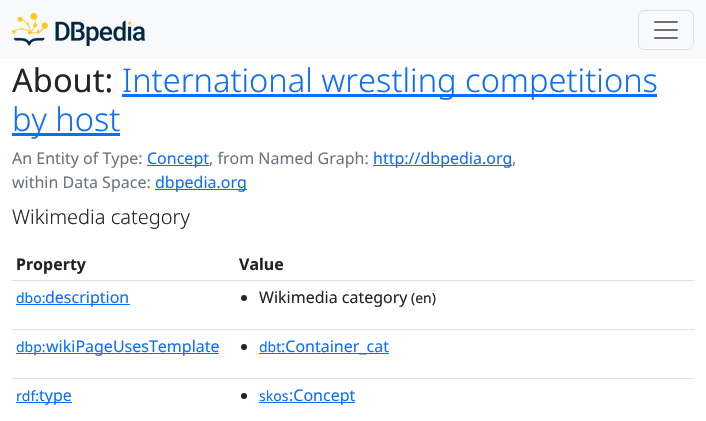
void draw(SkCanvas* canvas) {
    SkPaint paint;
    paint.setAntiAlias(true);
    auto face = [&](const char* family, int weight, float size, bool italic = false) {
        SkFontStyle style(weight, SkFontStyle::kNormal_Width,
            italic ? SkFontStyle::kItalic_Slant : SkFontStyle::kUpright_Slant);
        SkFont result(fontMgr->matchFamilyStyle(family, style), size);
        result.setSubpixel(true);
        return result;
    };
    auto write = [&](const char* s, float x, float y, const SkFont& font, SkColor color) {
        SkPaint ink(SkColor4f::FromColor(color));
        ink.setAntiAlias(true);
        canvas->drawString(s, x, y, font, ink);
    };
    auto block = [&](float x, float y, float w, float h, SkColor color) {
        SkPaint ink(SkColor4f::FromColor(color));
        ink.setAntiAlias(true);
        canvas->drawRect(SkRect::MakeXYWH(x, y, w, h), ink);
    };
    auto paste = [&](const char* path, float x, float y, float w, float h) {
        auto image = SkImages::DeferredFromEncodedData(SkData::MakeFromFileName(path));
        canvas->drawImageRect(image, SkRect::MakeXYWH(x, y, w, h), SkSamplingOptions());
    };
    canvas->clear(SK_ColorWHITE);
    block(0, 0, 706, 59, SkColorSetRGB(248, 249, 250));
    paste("pic1.png", 12, 13, 133, 33);
    paint.setStyle(SkPaint::kStroke_Style);
    paint.setStrokeWidth(1);
    paint.setColor(SkColorSetRGB(223, 224, 225));
    canvas->drawRoundRect(SkRect::MakeXYWH(638.5f, 10.5f, 55, 39), 5.5f, 5.5f, paint);
    paste("pic2.png", 654, 21, 24, 18);
    auto kFont1 = face("Noto Sans", 400, 32.6f);
    write("About:", 12, 92, kFont1, SkColorSetRGB(33, 37, 41));
    block(122, 94, 535, 3, SkColorSetRGB(13, 110, 253));
    auto kFont2 = face("Noto Sans", 300, 32.6f);
    write("International wrestling competitions", 122, 92, kFont2, SkColorSetRGB(13, 110, 253));
    block(12, 133, 108, 3, SkColorSetRGB(13, 110, 253));
    write("by host", 12, 131, kFont2, SkColorSetRGB(13, 110, 253));
    auto kFont3 = face("Noto Sans", 400, 16);
    write("An Entity of Type:", 12, 164, kFont3, SkColorSetRGB(108, 117, 125));
    block(147, 165, 62, 1, SkColorSetRGB(13, 110, 253));
    write("Concept", 147, 164, kFont3, SkColorSetRGB(13, 110, 253));
    write(", from Named Graph:", 209, 164, kFont3, SkColorSetRGB(108, 117, 125));
    block(373, 165, 139, 1, SkColorSetRGB(13, 110, 253));
    write("http://dbpedia.org", 373, 164, kFont3, SkColorSetRGB(13, 110, 253));
    write(",", 512, 164, kFont3, SkColorSetRGB(108, 117, 125));
    write("within Data Space:", 12, 188, kFont3, SkColorSetRGB(108, 117, 125));
    block(155, 189, 92, 1, SkColorSetRGB(13, 110, 253));
    write("dbpedia.org", 155, 188, kFont3, SkColorSetRGB(13, 110, 253));
    auto kFont4 = face("Noto Sans", 300, 20);
    write("Wikimedia category", 12, 224, kFont4, SkColorSetRGB(33, 37, 41));
    auto kFont5 = face("Noto Sans", 700, 16);
    write("Property", 16, 270, kFont5, SkColorSetRGB(33, 37, 41));
    block(12, 280, 683, 1, SkColorSetRGB(222, 226, 230));
    write("Value", 239, 270, kFont5, SkColorSetRGB(33, 37, 41));
    auto kFont6 = face("Noto Sans", 400, 14);
    write("dbo:", 16, 303, kFont6, SkColorSetRGB(13, 110, 253));
    block(16, 304, 114, 1, SkColorSetRGB(13, 110, 253));
    write("description", 45, 303, kFont3, SkColorSetRGB(13, 110, 253));
    block(12, 329, 683, 1, SkColorSetRGB(222, 226, 230));
    paint.setStyle(SkPaint::kFill_Style);
    paint.setColor(SkColorSetRGB(33, 37, 41));
    canvas->drawCircle(244, 298, 3, paint);
    write("Wikimedia category", 259, 303, kFont3, SkColorSetRGB(33, 37, 41));
    write("(en)", 411, 303, kFont6, SkColorSetRGB(33, 37, 41));
    block(16, 353, 203, 1, SkColorSetRGB(13, 110, 253));
    write("dbp:", 16, 352, kFont6, SkColorSetRGB(13, 110, 253));
    write("wikiPageUsesTemplate", 46, 352, kFont3, SkColorSetRGB(13, 110, 253));
    block(12, 378, 683, 1, SkColorSetRGB(222, 226, 230));
    canvas->drawCircle(244, 347, 3, paint);
    write("dbt", 259, 352, kFont6, SkColorSetRGB(13, 110, 253));
    block(259, 353, 130, 1, SkColorSetRGB(13, 110, 253));
    write(":Container_cat", 281, 352, kFont3, SkColorSetRGB(13, 110, 253));
    write("rdf:", 16, 401, kFont6, SkColorSetRGB(13, 110, 253));
    block(16, 402, 56, 1, SkColorSetRGB(13, 110, 253));
    write("type", 39, 401, kFont3, SkColorSetRGB(13, 110, 253));
    canvas->drawCircle(244, 396, 3, paint);
    write("skos", 259, 401, kFont6, SkColorSetRGB(13, 110, 253));
    block(259, 402, 96, 1, SkColorSetRGB(13, 110, 253));
    write(":Concept", 289, 401, kFont3, SkColorSetRGB(13, 110, 253));
}
